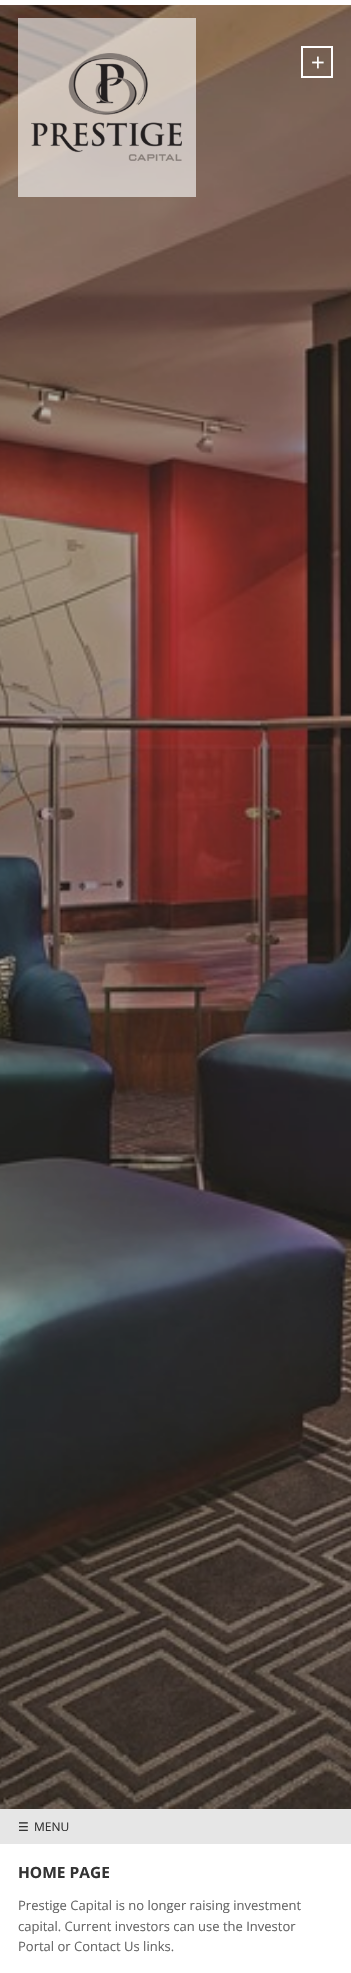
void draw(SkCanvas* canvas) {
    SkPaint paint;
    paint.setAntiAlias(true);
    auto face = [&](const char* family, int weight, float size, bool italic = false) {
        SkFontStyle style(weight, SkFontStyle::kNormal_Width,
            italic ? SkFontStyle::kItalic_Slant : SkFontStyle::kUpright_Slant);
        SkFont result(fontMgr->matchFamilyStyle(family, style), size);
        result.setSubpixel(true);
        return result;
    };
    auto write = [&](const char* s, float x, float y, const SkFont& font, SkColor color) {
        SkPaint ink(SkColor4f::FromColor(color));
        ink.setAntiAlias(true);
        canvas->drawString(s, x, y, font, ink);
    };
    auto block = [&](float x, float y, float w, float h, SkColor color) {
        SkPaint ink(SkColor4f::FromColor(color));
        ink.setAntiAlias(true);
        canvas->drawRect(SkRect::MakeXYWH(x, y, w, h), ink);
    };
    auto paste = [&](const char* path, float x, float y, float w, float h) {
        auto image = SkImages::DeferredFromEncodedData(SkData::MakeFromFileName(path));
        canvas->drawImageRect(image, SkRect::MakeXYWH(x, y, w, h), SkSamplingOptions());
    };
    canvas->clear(SK_ColorWHITE);
    paste("pic1.png", 0, 5, 351, 1804);
    block(18, 18, 178, 179, SkColorSetARGB(153, 255, 255, 255));
    paste("pic2.png", 31, 53, 151, 108);
    paint.setStyle(SkPaint::kStroke_Style);
    paint.setStrokeWidth(2);
    paint.setColor(SK_ColorWHITE);
    canvas->drawRect(SkRect::MakeXYWH(302, 47, 30, 30), paint);
    auto kFont1 = face("Open Sans", 400, 24);
    write("+", 311, 71, kFont1, SK_ColorWHITE);
    block(0, 1809, 351, 35, SkColorSetRGB(230, 230, 230));
    auto kFont2 = face("DejaVu Sans", 400, 12);
    write("☰", 18, 1831, kFont2, SkColorSetRGB(51, 51, 51));
    auto kFont3 = face("Open Sans", 400, 12);
    write("MENU", 34, 1831, kFont3, SkColorSetRGB(51, 51, 51));
    auto kFont4 = face("Open Sans", 700, 15.5f);
    write("HOME PAGE", 18, 1878, kFont4, SkColorSetRGB(51, 51, 51));
    auto kFont5 = face("Open Sans", 400, 13);
    write("Prestige Capital is no longer raising investment", 18, 1910, kFont5, SkColorSetRGB(102, 102, 102));
    write("capital. Current investors can use the Investor", 18, 1931, kFont5, SkColorSetRGB(102, 102, 102));
    write("Portal or Contact Us links.", 18, 1951, kFont5, SkColorSetRGB(102, 102, 102));
}
